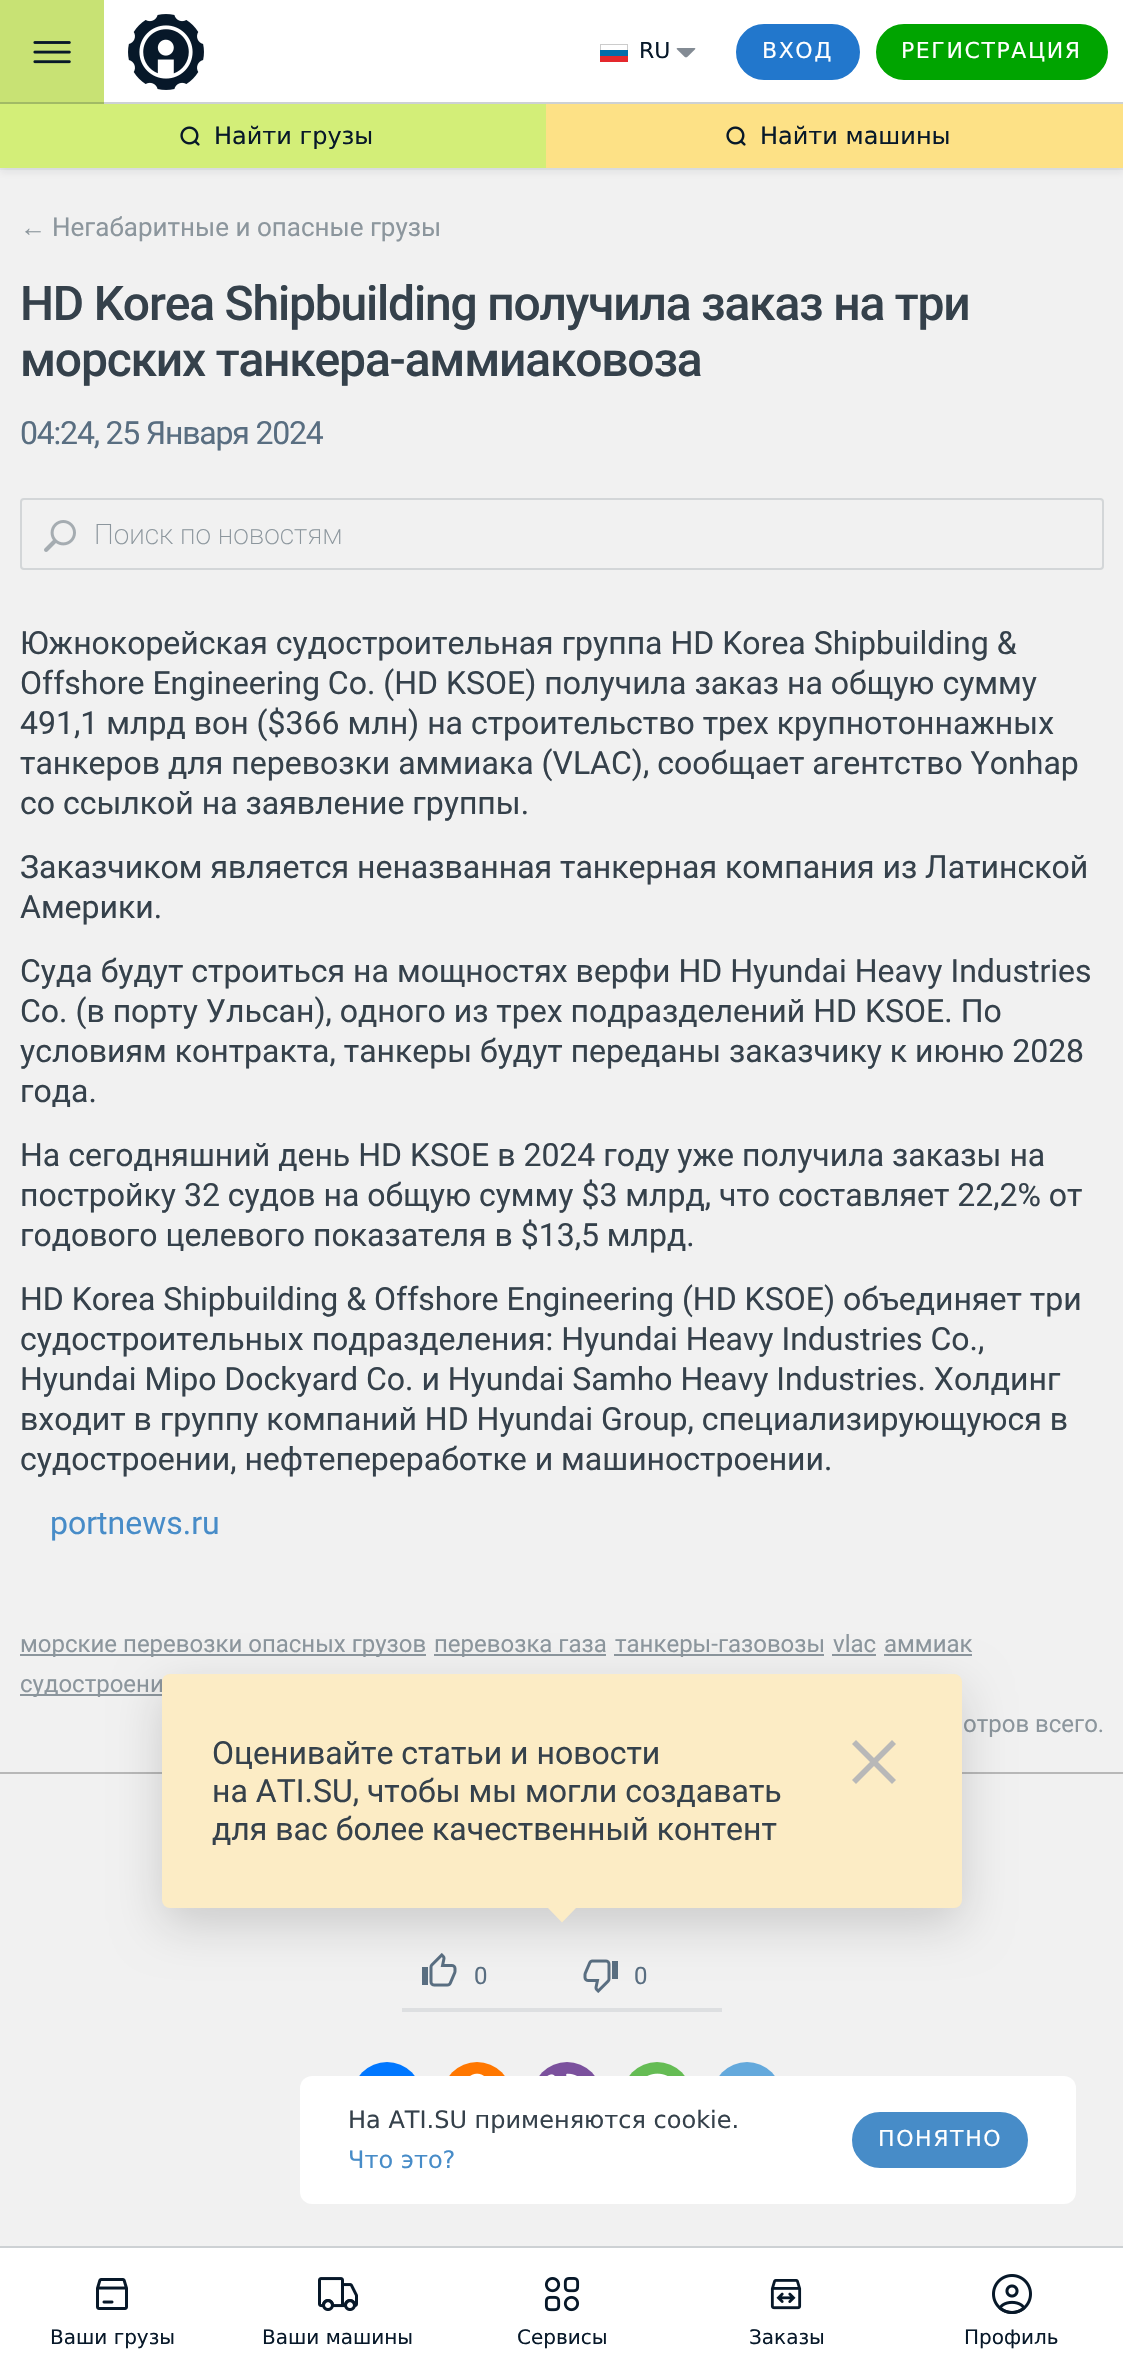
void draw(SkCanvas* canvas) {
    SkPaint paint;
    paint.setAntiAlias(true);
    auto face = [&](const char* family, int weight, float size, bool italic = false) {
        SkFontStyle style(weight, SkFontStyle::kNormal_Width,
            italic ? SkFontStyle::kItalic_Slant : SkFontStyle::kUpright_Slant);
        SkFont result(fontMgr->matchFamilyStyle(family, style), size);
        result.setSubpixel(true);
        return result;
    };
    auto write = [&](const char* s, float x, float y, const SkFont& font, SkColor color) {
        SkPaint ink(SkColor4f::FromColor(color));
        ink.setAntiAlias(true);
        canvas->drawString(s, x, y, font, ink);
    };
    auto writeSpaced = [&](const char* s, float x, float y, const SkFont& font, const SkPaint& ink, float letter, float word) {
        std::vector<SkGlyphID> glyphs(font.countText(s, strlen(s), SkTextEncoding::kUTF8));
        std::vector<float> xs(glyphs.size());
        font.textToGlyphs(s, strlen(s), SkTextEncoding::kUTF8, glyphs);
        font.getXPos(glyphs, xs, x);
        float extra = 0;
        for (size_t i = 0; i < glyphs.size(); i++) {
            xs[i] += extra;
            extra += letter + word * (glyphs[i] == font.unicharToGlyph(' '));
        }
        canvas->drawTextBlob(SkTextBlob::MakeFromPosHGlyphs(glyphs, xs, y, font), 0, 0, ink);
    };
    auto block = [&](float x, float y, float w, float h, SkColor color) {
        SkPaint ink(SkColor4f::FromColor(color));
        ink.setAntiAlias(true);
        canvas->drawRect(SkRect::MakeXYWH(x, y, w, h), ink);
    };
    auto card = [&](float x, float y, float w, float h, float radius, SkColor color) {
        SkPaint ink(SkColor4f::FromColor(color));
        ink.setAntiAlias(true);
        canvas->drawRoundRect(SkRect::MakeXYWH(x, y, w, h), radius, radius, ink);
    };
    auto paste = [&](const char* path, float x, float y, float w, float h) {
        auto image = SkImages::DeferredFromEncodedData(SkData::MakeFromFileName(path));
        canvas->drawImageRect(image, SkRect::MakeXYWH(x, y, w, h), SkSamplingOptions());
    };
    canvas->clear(SkColorSetRGB(241, 241, 241));
    block(0, 168, 1123, 2, SkColorSetRGB(230, 232, 234));
    paint.setColor(SkColorSetARGB(20, 7, 24, 41));
    paint.setMaskFilter(SkMaskFilter::MakeBlur(kNormal_SkBlurStyle, 4));
    canvas->drawRect(SkRect::MakeXYWH(0, 108, 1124, 64), paint);
    paint.setMaskFilter(nullptr);
    block(104, 0, 1019, 102, SK_ColorWHITE);
    block(104, 102, 1019, 2, SkColorSetRGB(205, 209, 212));
    block(0, 0, 104, 102, SkColorSetRGB(211, 238, 120));
    block(0, 102, 104, 2, SkColorSetRGB(170, 195, 104));
    paste("pic1.png", 33, 41, 38, 23);
    block(0, 0, 104, 104, SkColorSetARGB(13, 7, 24, 41));
    paste("pic2.png", 128, 14, 76, 76);
    paste("pic3.png", 600, 44, 28, 18);
    auto kFont1 = face("DejaVu Sans", 400, 22);
    write("RU", 639, 58, kFont1, SkColorSetRGB(7, 24, 41));
    paste("pic4.png", 676, 48, 20, 10);
    paint.setColor(SkColorSetRGB(34, 119, 204));
    canvas->drawRoundRect(SkRect::MakeXYWH(737, 25, 122, 54), 27, 27, paint);
    paint.setStyle(SkPaint::kStroke_Style);
    paint.setStrokeWidth(2);
    canvas->drawRoundRect(SkRect::MakeXYWH(737, 25, 122, 54), 27, 27, paint);
    paint.setStyle(SkPaint::kFill_Style);
    paint.setColor(SK_ColorWHITE);
    writeSpaced("ВХОД", 762, 58, kFont1, paint, 1.6f, 0);
    paint.setColor(SkColorSetRGB(0, 164, 0));
    canvas->drawRoundRect(SkRect::MakeXYWH(877, 25, 230, 54), 27, 27, paint);
    paint.setStyle(SkPaint::kStroke_Style);
    canvas->drawRoundRect(SkRect::MakeXYWH(877, 25, 230, 54), 27, 27, paint);
    paint.setStyle(SkPaint::kFill_Style);
    paint.setColor(SK_ColorWHITE);
    writeSpaced("РЕГИСТРАЦИЯ", 901, 58, kFont1, paint, 1.6f, 0);
    block(0, 104, 546, 64, SkColorSetRGB(211, 238, 120));
    paste("pic5.png", 180, 126, 20, 20);
    auto kFont2 = face("DejaVu Sans", 400, 24);
    write("Найти грузы", 214, 144, kFont2, SkColorSetRGB(7, 24, 41));
    block(546, 104, 577, 64, SkColorSetRGB(253, 225, 134));
    paste("pic6.png", 726, 126, 20, 20);
    write("Найти машины", 760, 144, kFont2, SkColorSetRGB(7, 24, 41));
    paint.setColor(SkColorSetRGB(0, 119, 255));
    canvas->drawCircle(387, 2097, 35, paint);
    paint.setColor(SkColorSetRGB(255, 119, 0));
    canvas->drawCircle(477, 2097, 35, paint);
    paint.setColor(SkColorSetRGB(123, 81, 157));
    canvas->drawCircle(567, 2097, 35, paint);
    paint.setColor(SkColorSetRGB(101, 188, 84));
    canvas->drawCircle(657, 2097, 35, paint);
    paint.setColor(SkColorSetRGB(100, 169, 220));
    canvas->drawCircle(747, 2097, 35, paint);
    card(300, 2076, 776, 128, 12, SK_ColorWHITE);
    write("На ATI.SU применяются cookie.", 348, 2128, kFont2, SkColorSetRGB(53, 65, 75));
    write("Что это?", 348, 2168, kFont2, SkColorSetRGB(71, 140, 200));
    paint.setColor(SkColorSetRGB(71, 140, 200));
    canvas->drawRoundRect(SkRect::MakeXYWH(853, 2113, 174, 54), 27, 27, paint);
    paint.setStyle(SkPaint::kStroke_Style);
    canvas->drawRoundRect(SkRect::MakeXYWH(853, 2113, 174, 54), 27, 27, paint);
    paint.setStyle(SkPaint::kFill_Style);
    paint.setColor(SK_ColorWHITE);
    writeSpaced("ПОНЯТНО", 878, 2146, kFont1, paint, 1.6f, 0);
    block(0, 2248, 1123, 132, SK_ColorWHITE);
    block(0, 2246, 1123, 2, SkColorSetRGB(205, 209, 212));
    paste("pic7.png", 96, 2278, 32, 32);
    auto kFont3 = face("DejaVu Sans", 400, 20);
    write("Ваши грузы", 50, 2344, kFont3, SkColorSetRGB(7, 24, 41));
    paste("pic8.png", 318, 2277, 40, 34);
    write("Ваши машины", 262, 2344, kFont3, SkColorSetRGB(7, 24, 41));
    paste("pic9.png", 544, 2277, 36, 35);
    write("Сервисы", 517, 2344, kFont3, SkColorSetRGB(7, 24, 41));
    paste("pic10.png", 770, 2279, 32, 31);
    write("Заказы", 749, 2344, kFont3, SkColorSetRGB(7, 24, 41));
    paste("pic11.png", 992, 2274, 40, 40);
    write("Профиль", 964, 2344, kFont3, SkColorSetRGB(7, 24, 41));
    auto kFont4 = face("Liberation Sans", 400, 26);
    write("←", 20, 236, kFont4, SkColorSetRGB(140, 150, 157));
    auto kFont5 = face("Roboto", 400, 26);
    write("Негабаритные и опасные грузы", 52, 236, kFont5, SkColorSetRGB(140, 150, 157));
    auto kFont6 = face("Roboto", 500, 48);
    paint.setColor(SkColorSetRGB(53, 65, 75));
    writeSpaced("HD Korea Shipbuilding получила заказ на три", 20, 320, kFont6, paint, -1.2f, 0);
    writeSpaced("морских танкера-аммиаковоза", 20, 376, kFont6, paint, -1.2f, 0);
    auto kFont7 = face("Roboto", 400, 32);
    paint.setColor(SkColorSetRGB(89, 110, 129));
    writeSpaced("04:24, 25 Января 2024", 20, 444, kFont7, paint, -1.2f, 0);
    paint.setStyle(SkPaint::kStroke_Style);
    paint.setColor(SkColorSetRGB(211, 214, 216));
    canvas->drawRoundRect(SkRect::MakeXYWH(21, 499, 1082, 70), 3, 3, paint);
    paste("pic12.png", 44, 520, 32, 32);
    auto kFont8 = face("Roboto", 200, 28);
    write("Поиск по новостям", 94, 544, kFont8, SkColorSetRGB(140, 150, 157));
    write("Южнокорейская судостроительная группа HD Korea Shipbuilding &", 20, 654, kFont7, SkColorSetRGB(53, 65, 75));
    write("Offshore Engineering Co. (HD KSOE) получила заказ на общую сумму", 20, 694, kFont7, SkColorSetRGB(53, 65, 75));
    write("491,1 млрд вон ($366 млн) на строительство трех крупнотоннажных", 20, 734, kFont7, SkColorSetRGB(53, 65, 75));
    write("танкеров для перевозки аммиака (VLAC), сообщает агентство Yonhap", 20, 774, kFont7, SkColorSetRGB(53, 65, 75));
    write("со ссылкой на заявление группы.", 20, 814, kFont7, SkColorSetRGB(53, 65, 75));
    write("Заказчиком является неназванная танкерная компания из Латинской", 20, 878, kFont7, SkColorSetRGB(53, 65, 75));
    write("Америки.", 20, 918, kFont7, SkColorSetRGB(53, 65, 75));
    write("Суда будут строиться на мощностях верфи HD Hyundai Heavy Industries", 20, 982, kFont7, SkColorSetRGB(53, 65, 75));
    write("Co. (в порту Ульсан), одного из трех подразделений HD KSOE. По", 20, 1022, kFont7, SkColorSetRGB(53, 65, 75));
    write("условиям контракта, танкеры будут переданы заказчику к июню 2028", 20, 1062, kFont7, SkColorSetRGB(53, 65, 75));
    write("года.", 20, 1102, kFont7, SkColorSetRGB(53, 65, 75));
    write("На сегодняшний день HD KSOE в 2024 году уже получила заказы на", 20, 1166, kFont7, SkColorSetRGB(53, 65, 75));
    write("постройку 32 судов на общую сумму $3 млрд, что составляет 22,2% от", 20, 1206, kFont7, SkColorSetRGB(53, 65, 75));
    write("годового целевого показателя в $13,5 млрд.", 20, 1246, kFont7, SkColorSetRGB(53, 65, 75));
    write("HD Korea Shipbuilding & Offshore Engineering (HD KSOE) объединяет три", 20, 1310, kFont7, SkColorSetRGB(53, 65, 75));
    write("судостроительных подразделения: Hyundai Heavy Industries Co.,", 20, 1350, kFont7, SkColorSetRGB(53, 65, 75));
    write("Hyundai Mipo Dockyard Co. и Hyundai Samho Heavy Industries. Холдинг", 20, 1390, kFont7, SkColorSetRGB(53, 65, 75));
    write("входит в группу компаний HD Hyundai Group, специализирующуюся в", 20, 1430, kFont7, SkColorSetRGB(53, 65, 75));
    write("судостроении, нефтепереработке и машиностроении.", 20, 1470, kFont7, SkColorSetRGB(53, 65, 75));
    write("portnews.ru", 50, 1534, kFont7, SkColorSetRGB(71, 140, 200));
    block(20, 1654, 406, 2, SkColorSetRGB(140, 150, 157));
    auto kFont9 = face("Roboto", 400, 24);
    write("морские перевозки опасных грузов", 20, 1652, kFont9, SkColorSetRGB(140, 150, 157));
    block(434, 1654, 172, 2, SkColorSetRGB(140, 150, 157));
    write("перевозка газа", 434, 1652, kFont9, SkColorSetRGB(140, 150, 157));
    block(614, 1654, 210, 2, SkColorSetRGB(140, 150, 157));
    write("танкеры-газовозы", 615, 1652, kFont9, SkColorSetRGB(140, 150, 157));
    write("vlac", 833, 1652, kFont9, SkColorSetRGB(140, 150, 157));
    block(832, 1654, 44, 2, SkColorSetRGB(140, 150, 157));
    write("аммиак", 884, 1652, kFont9, SkColorSetRGB(140, 150, 157));
    block(884, 1654, 88, 2, SkColorSetRGB(140, 150, 157));
    block(20, 1694, 142, 2, SkColorSetRGB(140, 150, 157));
    write("судостроени", 20, 1692, kFont9, SkColorSetRGB(140, 150, 157));
    write("отров всего.", 963, 1732, kFont9, SkColorSetRGB(140, 150, 157));
    paste("pic13.png", 422, 1953, 35, 34);
    paste("pic14.png", 583, 1959, 35, 34);
    block(0, 1772, 1123, 2, SkColorSetRGB(184, 184, 184));
    paint.setStyle(SkPaint::kFill_Style);
    paint.setColor(SkColorSetARGB(41, 0, 0, 0));
    paint.setMaskFilter(SkMaskFilter::MakeBlur(kNormal_SkBlurStyle, 24));
    canvas->drawRoundRect(SkRect::MakeXYWH(162, 1690, 800, 234), 8, 8, paint);
    paint.setMaskFilter(nullptr);
    card(162, 1674, 800, 234, 8, SkColorSetRGB(252, 236, 197));
    write("Оценивайте статьи и новости", 212, 1764, kFont7, SkColorSetRGB(53, 65, 75));
    write("на ATI.SU, чтобы мы могли создавать", 212, 1802, kFont7, SkColorSetRGB(53, 65, 75));
    write("для вас более качественный контент", 212, 1840, kFont7, SkColorSetRGB(53, 65, 75));
    paint.setColor(SkColorSetRGB(184, 184, 184));
    canvas->drawPath(SkPathBuilder().moveTo(856, 1740).lineTo(896, 1780).lineTo(892, 1784).lineTo(852, 1744).close().detach(), paint);
    canvas->drawPath(SkPathBuilder().moveTo(892, 1740).lineTo(896, 1744).lineTo(856, 1784).lineTo(852, 1780).close().detach(), paint);
    paint.setColor(SkColorSetRGB(252, 236, 197));
    canvas->drawPath(SkPathBuilder().moveTo(562, 1894).lineTo(576, 1908).lineTo(562, 1922.5f).lineTo(548, 1908).close().detach(), paint);
    write("0", 474, 1984, kFont9, SkColorSetRGB(89, 110, 129));
    write("0", 634, 1984, kFont9, SkColorSetRGB(89, 110, 129));
    block(402, 2008, 320, 4, SkColorSetRGB(221, 223, 225));
    paste("pic15.png", 470, 2073, 14, 3);
    paste("pic16.png", 547, 2073, 30, 3);
    paste("pic17.png", 647, 2073, 21, 3);
}
